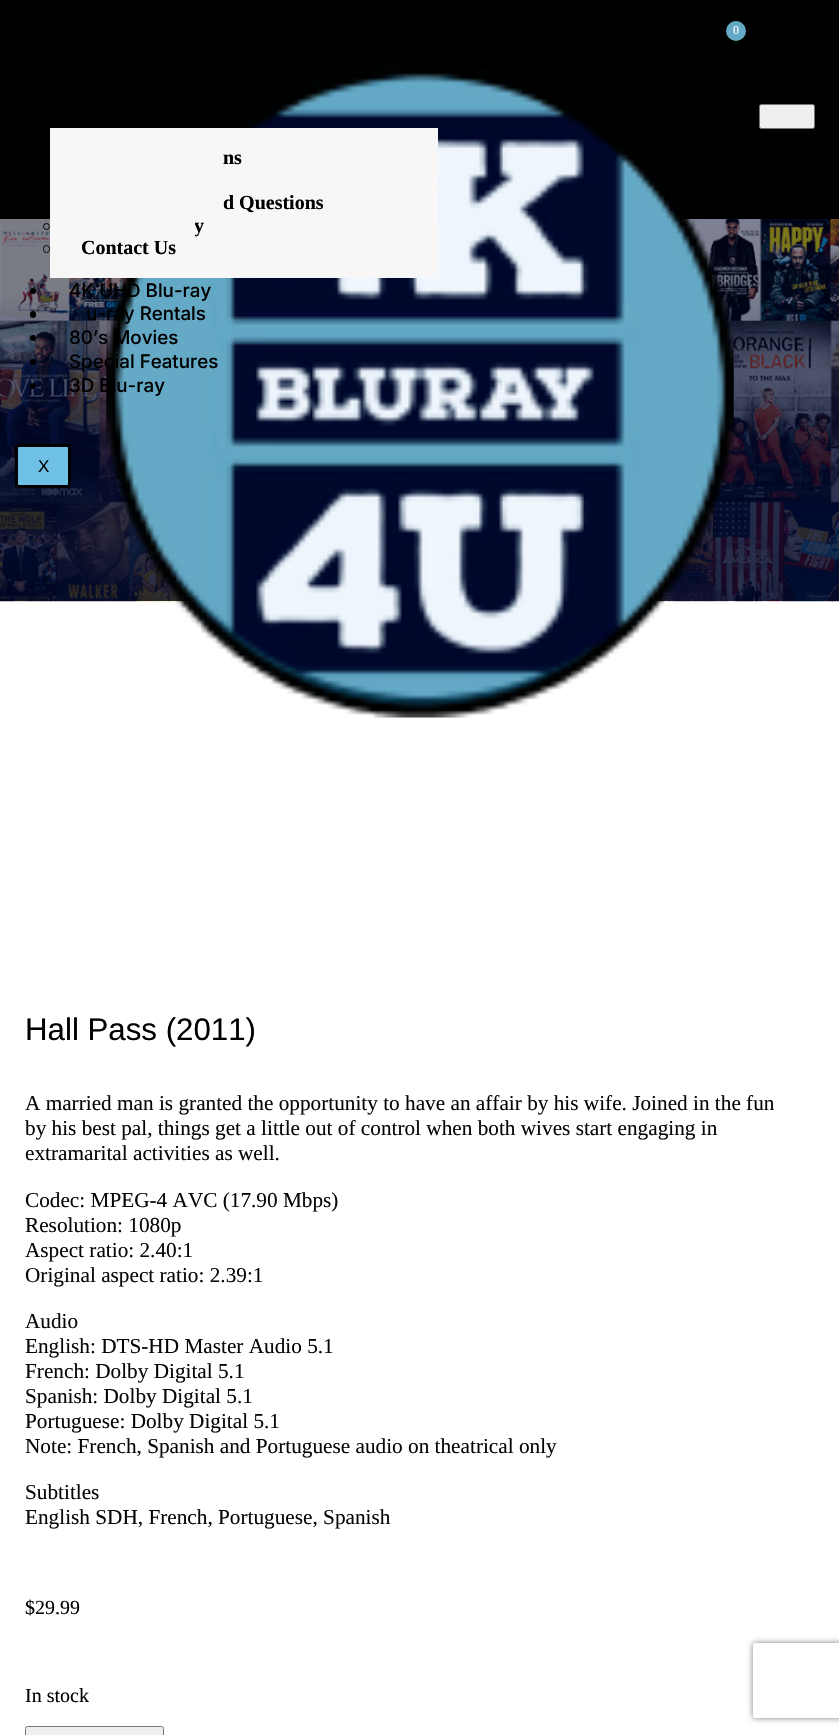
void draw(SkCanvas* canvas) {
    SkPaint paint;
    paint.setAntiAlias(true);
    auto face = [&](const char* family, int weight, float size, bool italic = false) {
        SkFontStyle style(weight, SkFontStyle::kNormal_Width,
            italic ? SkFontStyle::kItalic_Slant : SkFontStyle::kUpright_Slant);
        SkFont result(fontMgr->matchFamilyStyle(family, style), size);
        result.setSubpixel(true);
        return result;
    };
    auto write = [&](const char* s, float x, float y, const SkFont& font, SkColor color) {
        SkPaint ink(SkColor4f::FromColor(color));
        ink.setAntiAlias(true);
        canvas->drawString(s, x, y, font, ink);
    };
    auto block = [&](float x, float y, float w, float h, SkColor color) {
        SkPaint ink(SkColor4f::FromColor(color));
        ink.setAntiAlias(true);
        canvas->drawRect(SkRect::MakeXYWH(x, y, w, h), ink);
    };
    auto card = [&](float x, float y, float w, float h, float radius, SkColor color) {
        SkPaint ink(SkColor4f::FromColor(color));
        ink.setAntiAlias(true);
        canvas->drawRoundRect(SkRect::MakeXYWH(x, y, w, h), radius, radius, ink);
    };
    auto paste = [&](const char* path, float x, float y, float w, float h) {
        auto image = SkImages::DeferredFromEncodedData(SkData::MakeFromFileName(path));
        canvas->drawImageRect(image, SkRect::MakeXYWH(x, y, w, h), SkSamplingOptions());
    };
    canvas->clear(SK_ColorWHITE);
    block(0, 0, 839, 219, SK_ColorBLACK);
    paint.setColor(SkColorSetRGB(100, 169, 197));
    canvas->drawCircle(736, 31, 10, paint);
    auto kFont1 = face("Liberation Serif", 400, 12);
    write("0", 733, 34, kFont1, SK_ColorWHITE);
    paste("pic2.png", 0, 219, 839, 383);
    paste("pic1.png", 106, 65, 628, 653);
    paint.setColor(SkColorSetRGB(239, 239, 239));
    canvas->drawRoundRect(SkRect::MakeXYWH(759.5f, 104.5f, 55, 24), 2, 2, paint);
    paint.setStyle(SkPaint::kStroke_Style);
    paint.setStrokeWidth(1);
    paint.setColor(SkColorSetRGB(118, 118, 118));
    canvas->drawRoundRect(SkRect::MakeXYWH(759.5f, 104.5f, 55, 24), 2, 2, paint);
    block(50, 128, 388, 150, SkColorSetRGB(247, 247, 247));
    auto kFont2 = face("Liberation Serif", 700, 20);
    write("ns", 223, 164, kFont2, SK_ColorBLACK);
    write("d Questions", 223, 209, kFont2, SK_ColorBLACK);
    paint.setColor(SK_ColorBLACK);
    canvas->drawCircle(46.5f, 226.5f, 3, paint);
    write("y", 194, 232, kFont2, SK_ColorBLACK);
    canvas->drawRoundRect(SkRect::MakeXYWH(43.5f, 245.5f, 6, 7), 3, 3, paint);
    write("Contact Us", 81, 254, kFont2, SK_ColorBLACK);
    block(194, 222, 1, 15, SkColorSetRGB(247, 247, 247));
    paint.setStyle(SkPaint::kFill_Style);
    canvas->drawCircle(33, 291, 3, paint);
    auto kFont3 = face("Inter", 500, 18.75f);
    write("4K UHD Blu-ray", 69, 297, kFont3, SK_ColorBLACK);
    card(30, 311, 6, 7, 3, SK_ColorBLACK);
    write("u-ray Rentals", 86, 320, kFont3, SK_ColorBLACK);
    canvas->drawCircle(33, 338, 3, paint);
    write("80’s Movies", 69, 344, kFont3, SK_ColorBLACK);
    canvas->drawCircle(33, 362, 3, paint);
    write("Special Features", 69, 368, kFont3, SK_ColorBLACK);
    canvas->drawCircle(33, 386, 3, paint);
    write("3D Blu-ray", 69, 392, kFont3, SK_ColorBLACK);
    paint.setColor(SkColorSetRGB(110, 193, 228));
    canvas->drawRoundRect(SkRect::MakeXYWH(16.5f, 445.5f, 53, 41), 2.5f, 2.5f, paint);
    paint.setStyle(SkPaint::kStroke_Style);
    paint.setStrokeWidth(3);
    paint.setColor(SK_ColorBLACK);
    canvas->drawRoundRect(SkRect::MakeXYWH(16.5f, 445.5f, 53, 41), 2.5f, 2.5f, paint);
    auto kFont4 = face("Liberation Sans", 400, 17);
    write("X", 38, 472, kFont4, SK_ColorBLACK);
    auto kFont5 = face("Liberation Sans", 400, 31.25f);
    write("Hall Pass (2011)", 25, 1040, kFont5, SK_ColorBLACK);
    auto kFont6 = face("Liberation Serif", 400, 21.25f);
    write("A married man is granted the opportunity to have an affair by his wife. Joined in the fun", 25, 1110, kFont6, SkColorSetRGB(6, 6, 6));
    write("by his best pal, things get a little out of control when both wives start engaging in", 25, 1135, kFont6, SkColorSetRGB(6, 6, 6));
    write("extramarital activities as well.", 25, 1160, kFont6, SkColorSetRGB(6, 6, 6));
    write("Codec: MPEG-4 AVC (17.90 Mbps)", 25, 1207, kFont6, SkColorSetRGB(6, 6, 6));
    write("Resolution: 1080p", 25, 1232, kFont6, SkColorSetRGB(6, 6, 6));
    write("Aspect ratio: 2.40:1", 25, 1257, kFont6, SkColorSetRGB(6, 6, 6));
    write("Original aspect ratio: 2.39:1", 25, 1282, kFont6, SkColorSetRGB(6, 6, 6));
    write("Audio", 25, 1328, kFont6, SkColorSetRGB(6, 6, 6));
    write("English: DTS-HD Master Audio 5.1", 25, 1353, kFont6, SkColorSetRGB(6, 6, 6));
    write("French: Dolby Digital 5.1", 25, 1378, kFont6, SkColorSetRGB(6, 6, 6));
    write("Spanish: Dolby Digital 5.1", 25, 1403, kFont6, SkColorSetRGB(6, 6, 6));
    write("Portuguese: Dolby Digital 5.1", 25, 1428, kFont6, SkColorSetRGB(6, 6, 6));
    write("Note: French, Spanish and Portuguese audio on theatrical only", 25, 1453, kFont6, SkColorSetRGB(6, 6, 6));
    write("Subtitles", 25, 1499, kFont6, SkColorSetRGB(6, 6, 6));
    write("English SDH, French, Portuguese, Spanish", 25, 1524, kFont6, SkColorSetRGB(6, 6, 6));
    auto kFont7 = face("Liberation Serif", 400, 20);
    write("$29.99", 25, 1614, kFont7, SK_ColorBLACK);
    write("In stock", 25, 1702, kFont7, SK_ColorBLACK);
    paint.setStyle(SkPaint::kFill_Style);
    paint.setColor(SkColorSetRGB(239, 239, 239));
    canvas->drawRoundRect(SkRect::MakeXYWH(25.5f, 1726.5f, 138, 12), 2, 2, paint);
    paint.setStyle(SkPaint::kStroke_Style);
    paint.setStrokeWidth(1);
    paint.setColor(SkColorSetRGB(118, 118, 118));
    canvas->drawRoundRect(SkRect::MakeXYWH(25.5f, 1726.5f, 138, 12), 2, 2, paint);
    canvas->save();
    canvas->clipPath(SkPathBuilder(SkPathFillType::kEvenOdd).moveTo(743, 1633).lineTo(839, 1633).lineTo(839, 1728).lineTo(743, 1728).close().moveTo(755.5f, 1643).lineTo(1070.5f, 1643).cubicTo(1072, 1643, 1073, 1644, 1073, 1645.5f).lineTo(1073, 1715.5f).cubicTo(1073, 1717, 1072, 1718, 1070.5f, 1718).lineTo(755.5f, 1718).cubicTo(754, 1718, 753, 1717, 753, 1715.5f).lineTo(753, 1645.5f).cubicTo(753, 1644, 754, 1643, 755.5f, 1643).close().detach(), true);
    paint.setStyle(SkPaint::kFill_Style);
    paint.setColor(SkColorSetRGB(128, 128, 128));
    paint.setMaskFilter(SkMaskFilter::MakeBlur(kNormal_SkBlurStyle, 3));
    canvas->drawRoundRect(SkRect::MakeXYWH(753, 1643, 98, 75), 2.5f, 2.5f, paint);
    paint.setMaskFilter(nullptr);
    canvas->restore();
}
